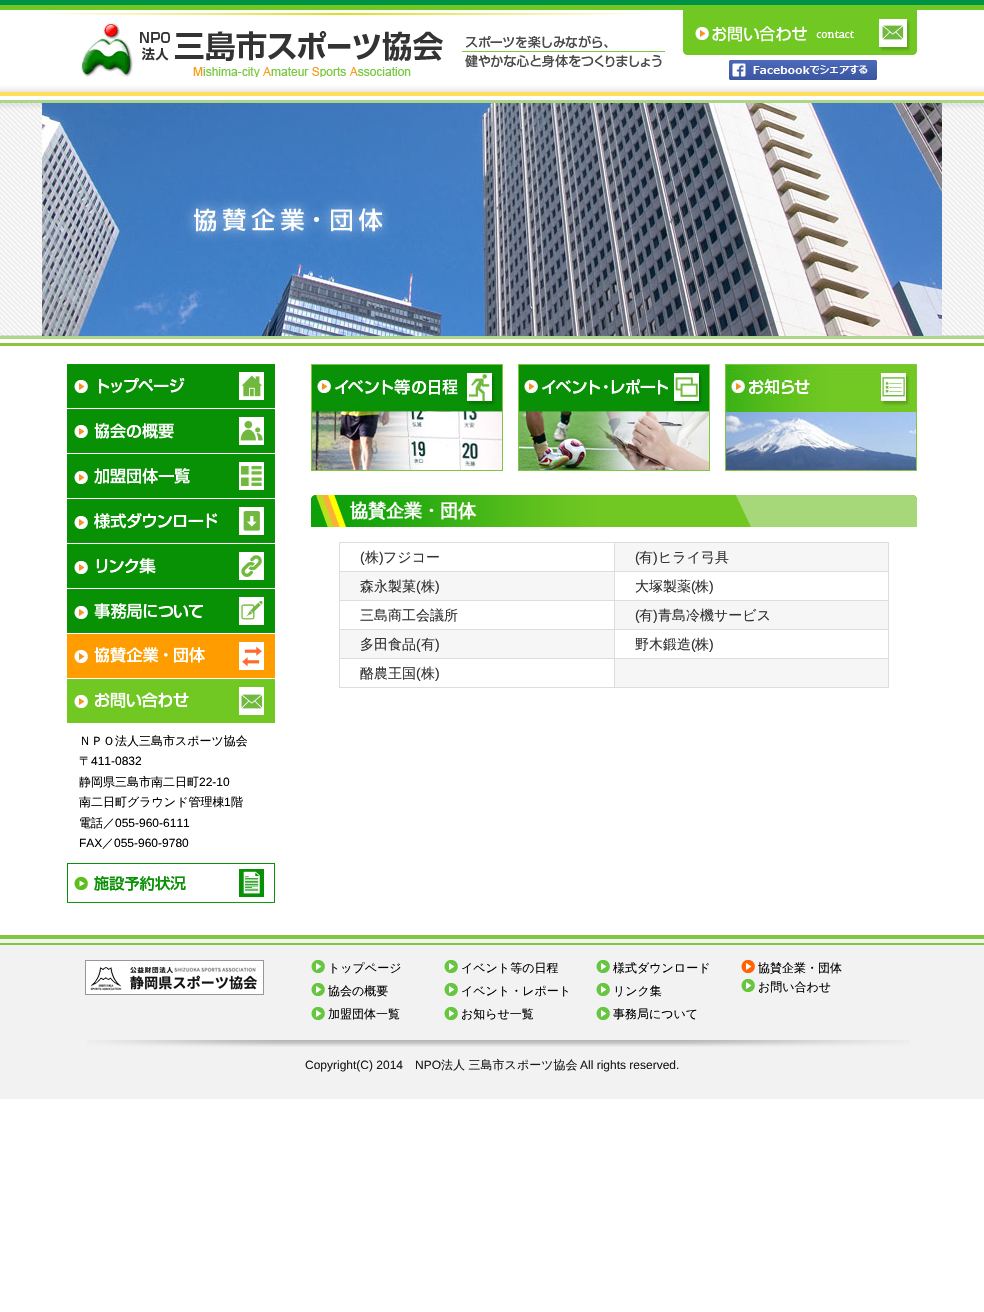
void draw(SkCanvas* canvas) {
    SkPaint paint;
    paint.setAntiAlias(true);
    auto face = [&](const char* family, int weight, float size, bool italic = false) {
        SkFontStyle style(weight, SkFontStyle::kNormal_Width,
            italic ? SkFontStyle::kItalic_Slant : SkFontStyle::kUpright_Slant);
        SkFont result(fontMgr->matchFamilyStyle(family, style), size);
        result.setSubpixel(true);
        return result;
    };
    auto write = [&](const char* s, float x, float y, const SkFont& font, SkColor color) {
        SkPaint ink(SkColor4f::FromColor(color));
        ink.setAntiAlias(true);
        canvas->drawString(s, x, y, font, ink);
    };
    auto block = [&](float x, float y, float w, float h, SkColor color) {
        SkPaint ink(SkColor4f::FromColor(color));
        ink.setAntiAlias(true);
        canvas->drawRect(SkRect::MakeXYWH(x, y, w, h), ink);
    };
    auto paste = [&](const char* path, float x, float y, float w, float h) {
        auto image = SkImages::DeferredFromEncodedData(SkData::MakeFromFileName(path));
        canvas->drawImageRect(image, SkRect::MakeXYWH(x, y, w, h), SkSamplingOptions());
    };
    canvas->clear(SK_ColorWHITE);
    paste("pic1.png", 0, 0, 984, 10);
    paste("pic2.png", 0, 86, 984, 17);
    paste("pic3.png", 48, 13, 594, 2);
    paste("pic4.png", 683, 9, 234, 46);
    paste("pic5.png", 81, 22, 362, 55);
    paste("pic6.png", 462, 35, 203, 33);
    paste("pic7.png", 729, 60, 148, 20);
    paste("pic8.png", 0, 336, 984, 10);
    paste("pic9.png", 0, 103, 984, 233);
    paste("pic10.png", 42, 103, 900, 233);
    paste("pic11.png", 311, 364, 192, 107);
    paste("pic12.png", 518, 364, 192, 107);
    paste("pic13.png", 725, 364, 192, 107);
    paste("pic14.png", 311, 495, 606, 32);
    auto kFont1 = face("WenQuanYi Zen Hei", 700, 18);
    write("協賛企業・団体", 350, 517, kFont1, SK_ColorWHITE);
    block(614, 542, 275, 1, SkColorSetRGB(220, 221, 221));
    block(614, 571, 275, 1, SkColorSetRGB(220, 221, 221));
    block(614, 600, 275, 1, SkColorSetRGB(220, 221, 221));
    block(614, 629, 275, 1, SkColorSetRGB(220, 221, 221));
    block(614, 658, 275, 1, SkColorSetRGB(220, 221, 221));
    block(888, 658, 1, 30, SkColorSetRGB(220, 221, 221));
    block(614, 687, 275, 1, SkColorSetRGB(220, 221, 221));
    block(614, 658, 1, 30, SkColorSetRGB(220, 221, 221));
    block(339, 658, 276, 1, SkColorSetRGB(220, 221, 221));
    block(614, 629, 1, 30, SkColorSetRGB(220, 221, 221));
    block(339, 629, 276, 1, SkColorSetRGB(220, 221, 221));
    block(614, 600, 1, 30, SkColorSetRGB(220, 221, 221));
    block(339, 600, 276, 1, SkColorSetRGB(220, 221, 221));
    block(614, 571, 1, 30, SkColorSetRGB(220, 221, 221));
    block(339, 571, 276, 1, SkColorSetRGB(220, 221, 221));
    block(614, 542, 1, 30, SkColorSetRGB(220, 221, 221));
    block(339, 542, 276, 1, SkColorSetRGB(220, 221, 221));
    block(339, 687, 276, 1, SkColorSetRGB(220, 221, 221));
    block(339, 658, 1, 30, SkColorSetRGB(220, 221, 221));
    block(339, 629, 1, 30, SkColorSetRGB(220, 221, 221));
    block(339, 600, 1, 30, SkColorSetRGB(220, 221, 221));
    block(339, 571, 1, 30, SkColorSetRGB(220, 221, 221));
    block(339, 542, 1, 30, SkColorSetRGB(220, 221, 221));
    auto kFont2 = face("Liberation Sans", 400, 14);
    write("(", 360, 562, kFont2, SkColorSetRGB(51, 51, 51));
    auto kFont3 = face("WenQuanYi Zen Hei", 500, 14);
    write("株", 365, 562, kFont3, SkColorSetRGB(51, 51, 51));
    write(")", 379, 562, kFont2, SkColorSetRGB(51, 51, 51));
    write("フジコー", 383, 562, kFont3, SkColorSetRGB(51, 51, 51));
    block(615, 543, 273, 28, SkColorSetRGB(246, 246, 246));
    block(888, 629, 1, 30, SkColorSetRGB(220, 221, 221));
    block(888, 600, 1, 30, SkColorSetRGB(220, 221, 221));
    block(888, 571, 1, 30, SkColorSetRGB(220, 221, 221));
    block(888, 542, 1, 30, SkColorSetRGB(220, 221, 221));
    write("(", 635, 562, kFont2, SkColorSetRGB(51, 51, 51));
    write("有", 639, 562, kFont3, SkColorSetRGB(51, 51, 51));
    write(")", 653, 562, kFont2, SkColorSetRGB(51, 51, 51));
    write("ヒライ弓具", 658, 562, kFont3, SkColorSetRGB(51, 51, 51));
    block(340, 572, 274, 28, SkColorSetRGB(246, 246, 246));
    write("森永製菓", 360, 591, kFont3, SkColorSetRGB(51, 51, 51));
    write("(", 416, 591, kFont2, SkColorSetRGB(51, 51, 51));
    write("株", 421, 591, kFont3, SkColorSetRGB(51, 51, 51));
    write(")", 435, 591, kFont2, SkColorSetRGB(51, 51, 51));
    write("大塚製薬", 635, 591, kFont3, SkColorSetRGB(51, 51, 51));
    write("(", 691, 591, kFont2, SkColorSetRGB(51, 51, 51));
    write("株", 695, 591, kFont3, SkColorSetRGB(51, 51, 51));
    write(")", 709, 591, kFont2, SkColorSetRGB(51, 51, 51));
    write("三島商工会議所", 360, 620, kFont3, SkColorSetRGB(51, 51, 51));
    block(615, 601, 273, 28, SkColorSetRGB(246, 246, 246));
    write("(", 635, 620, kFont2, SkColorSetRGB(51, 51, 51));
    write("有", 639, 620, kFont3, SkColorSetRGB(51, 51, 51));
    write(")", 653, 620, kFont2, SkColorSetRGB(51, 51, 51));
    write("青島冷機サービス", 658, 620, kFont3, SkColorSetRGB(51, 51, 51));
    block(340, 630, 274, 28, SkColorSetRGB(246, 246, 246));
    write("多田食品", 360, 649, kFont3, SkColorSetRGB(51, 51, 51));
    write("(", 416, 649, kFont2, SkColorSetRGB(51, 51, 51));
    write("有", 421, 649, kFont3, SkColorSetRGB(51, 51, 51));
    write(")", 435, 649, kFont2, SkColorSetRGB(51, 51, 51));
    write("野木鍛造", 635, 649, kFont3, SkColorSetRGB(51, 51, 51));
    write("(", 691, 649, kFont2, SkColorSetRGB(51, 51, 51));
    write("株", 695, 649, kFont3, SkColorSetRGB(51, 51, 51));
    write(")", 709, 649, kFont2, SkColorSetRGB(51, 51, 51));
    write("酪農王国", 360, 678, kFont3, SkColorSetRGB(51, 51, 51));
    write("(", 416, 678, kFont2, SkColorSetRGB(51, 51, 51));
    write("株", 421, 678, kFont3, SkColorSetRGB(51, 51, 51));
    write(")", 435, 678, kFont2, SkColorSetRGB(51, 51, 51));
    block(615, 659, 273, 28, SkColorSetRGB(246, 246, 246));
    paste("pic15.png", 67, 364, 208, 44);
    paste("pic16.png", 67, 409, 208, 44);
    paste("pic17.png", 67, 454, 208, 44);
    paste("pic18.png", 67, 499, 208, 44);
    paste("pic19.png", 67, 544, 208, 44);
    paste("pic20.png", 67, 589, 208, 44);
    paste("pic21.png", 67, 634, 208, 44);
    paste("pic22.png", 67, 679, 208, 44);
    auto kFont4 = face("WenQuanYi Zen Hei", 500, 12);
    write("ＮＰＯ法人三島市スポーツ協会", 79, 745, kFont4, SK_ColorBLACK);
    write("〒", 79, 765, kFont4, SK_ColorBLACK);
    auto kFont5 = face("Liberation Sans", 400, 12);
    write("411-0832", 91, 765, kFont5, SK_ColorBLACK);
    write("静岡県三島市南二日町", 79, 786, kFont4, SK_ColorBLACK);
    write("22-10", 199, 786, kFont5, SK_ColorBLACK);
    write("南二日町グラウンド管理棟", 79, 806, kFont4, SK_ColorBLACK);
    write("1", 224, 806, kFont5, SK_ColorBLACK);
    write("階", 231, 806, kFont4, SK_ColorBLACK);
    write("電話／", 79, 827, kFont4, SK_ColorBLACK);
    write("055-960-6111", 115, 827, kFont5, SK_ColorBLACK);
    write("FAX", 79, 847, kFont5, SK_ColorBLACK);
    write("／", 102, 847, kFont4, SK_ColorBLACK);
    write("055-960-9780", 114, 847, kFont5, SK_ColorBLACK);
    paste("pic23.png", 67, 863, 208, 40);
    block(0, 945, 984, 154, SkColorSetRGB(242, 242, 242));
    paste("pic24.png", 0, 935, 984, 10);
    paste("pic25.png", 85, 960, 179, 35);
    paste("pic26.png", 311, 960, 14, 13);
    write("トップページ", 328, 972, kFont4, SK_ColorBLACK);
    paste("pic26.png", 311, 983, 14, 13);
    write("協会の概要", 328, 995, kFont4, SK_ColorBLACK);
    paste("pic26.png", 311, 1007, 14, 13);
    write("加盟団体一覧", 328, 1018, kFont4, SK_ColorBLACK);
    paste("pic26.png", 444, 960, 14, 13);
    write("イベント等の日程", 461, 972, kFont4, SK_ColorBLACK);
    paste("pic26.png", 444, 983, 14, 13);
    write("イベント・レポート", 461, 995, kFont4, SK_ColorBLACK);
    paste("pic26.png", 444, 1007, 14, 13);
    write("お知らせ一覧", 461, 1018, kFont4, SK_ColorBLACK);
    paste("pic26.png", 596, 960, 14, 13);
    write("様式ダウンロード", 613, 972, kFont4, SK_ColorBLACK);
    paste("pic26.png", 596, 983, 14, 13);
    write("リンク集", 613, 995, kFont4, SK_ColorBLACK);
    paste("pic26.png", 596, 1007, 14, 13);
    write("事務局について", 613, 1018, kFont4, SK_ColorBLACK);
    paste("pic27.png", 741, 960, 14, 13);
    write("協賛企業・団体", 758, 972, kFont4, SK_ColorBLACK);
    paste("pic26.png", 741, 979, 14, 13);
    write("お問い合わせ", 758, 991, kFont4, SK_ColorBLACK);
    paste("pic28.png", 87, 1040, 823, 7);
    write("Copyright(C) 2014", 305, 1069, kFont5, SkColorSetRGB(26, 26, 26));
    write("NPO", 415, 1069, kFont5, SkColorSetRGB(26, 26, 26));
    write("法人 三島市スポーツ協会", 441, 1069, kFont4, SkColorSetRGB(26, 26, 26));
    write("All rights reserved.", 580, 1069, kFont5, SkColorSetRGB(26, 26, 26));
}
